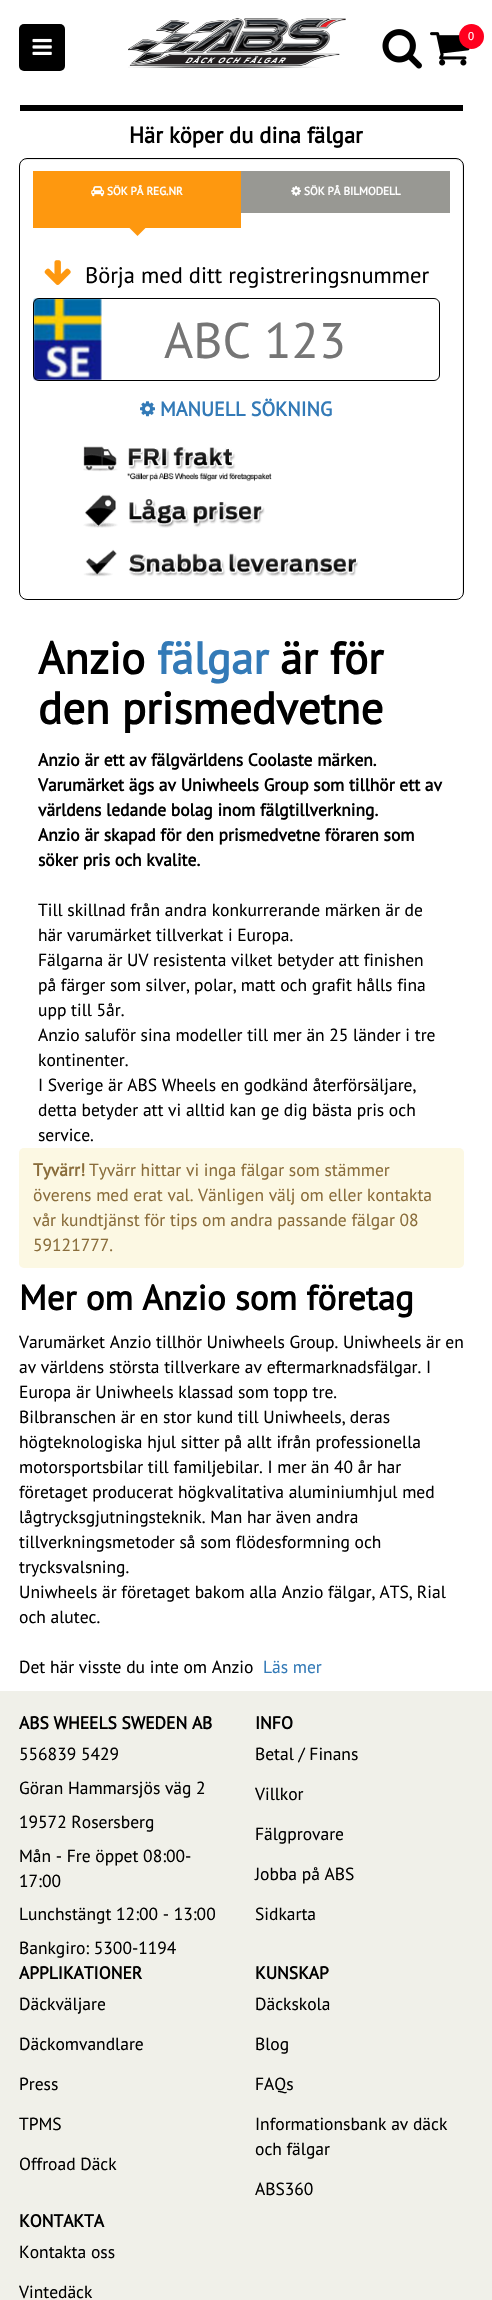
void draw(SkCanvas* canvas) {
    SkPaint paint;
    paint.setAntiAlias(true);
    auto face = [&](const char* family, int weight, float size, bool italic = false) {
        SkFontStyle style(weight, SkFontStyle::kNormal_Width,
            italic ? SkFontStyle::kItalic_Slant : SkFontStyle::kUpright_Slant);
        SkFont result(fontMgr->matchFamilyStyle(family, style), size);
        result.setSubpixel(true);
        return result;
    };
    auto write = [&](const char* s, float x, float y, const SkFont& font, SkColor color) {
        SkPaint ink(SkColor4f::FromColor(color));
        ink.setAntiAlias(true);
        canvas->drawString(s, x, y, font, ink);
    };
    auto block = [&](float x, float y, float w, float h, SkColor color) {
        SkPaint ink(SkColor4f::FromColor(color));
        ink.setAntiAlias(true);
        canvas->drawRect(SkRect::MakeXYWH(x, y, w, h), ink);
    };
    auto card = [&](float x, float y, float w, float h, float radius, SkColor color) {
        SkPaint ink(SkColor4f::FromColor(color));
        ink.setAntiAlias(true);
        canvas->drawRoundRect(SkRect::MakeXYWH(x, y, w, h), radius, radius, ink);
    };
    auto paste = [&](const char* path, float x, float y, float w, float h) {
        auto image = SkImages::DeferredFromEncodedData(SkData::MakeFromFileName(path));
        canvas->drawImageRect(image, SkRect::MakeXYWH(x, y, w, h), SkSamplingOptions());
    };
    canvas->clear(SK_ColorWHITE);
    card(19, 24, 46, 47, 5, SK_ColorBLACK);
    paste("pic1.png", 32, 38, 20, 17);
    paste("pic2.png", 128, 18, 218, 50);
    paste("pic3.png", 382, 29, 40, 40);
    paste("pic4.png", 430, 32, 40, 34);
    paint.setColor(SkColorSetRGB(255, 0, 30));
    canvas->drawCircle(471.5f, 36.5f, 12.5f, paint);
    auto kFont1 = face("PT Sans", 400, 11.25f);
    write("0", 468, 40, kFont1, SK_ColorWHITE);
    block(20, 105, 443, 6, SK_ColorBLACK);
    auto kFont2 = face("PT Sans", 700, 22.5f);
    write("Här köper du dina fälgar", 129, 143, kFont2, SK_ColorBLACK);
    paint.setColor(SkColorSetRGB(236, 236, 236));
    canvas->drawPath(SkPathBuilder().moveTo(26, 160).lineTo(456, 160).cubicTo(460, 160, 462, 163, 462, 166).lineTo(462, 594).cubicTo(462, 595, 462, 596, 461, 597).cubicTo(462, 596, 463, 595, 463, 593).lineTo(463, 165).cubicTo(463, 162, 460, 159, 457, 159).lineTo(26, 159).cubicTo(23, 159, 20, 162, 20, 165).lineTo(20, 166).cubicTo(20, 163, 23, 160, 26, 160).close().detach(), paint);
    paint.setStyle(SkPaint::kStroke_Style);
    paint.setStrokeWidth(1);
    paint.setColor(SK_ColorBLACK);
    canvas->drawRoundRect(SkRect::MakeXYWH(19.5f, 158.5f, 444, 441), 7.5f, 7.5f, paint);
    block(33, 171, 208, 57, SkColorSetRGB(254, 152, 15));
    paste("pic5.png", 91, 186, 14, 11);
    auto kFont3 = face("PT Sans", 700, 11.25f);
    write("SÖK PÅ REG.NR", 107, 195, kFont3, SK_ColorWHITE);
    paint.setStyle(SkPaint::kFill_Style);
    paint.setColor(SkColorSetRGB(254, 152, 15));
    canvas->drawPath(SkPathBuilder().moveTo(127.5f, 226).lineTo(147.5f, 226).lineTo(137.5f, 236).close().detach(), paint);
    block(241, 171, 209, 42, SkColorSetRGB(152, 152, 147));
    paste("pic6.png", 291, 186, 10, 10);
    write("SÖK PÅ BILMODELL", 304, 195, kFont3, SK_ColorWHITE);
    paste("pic7.png", 44, 260, 27, 25);
    auto kFont4 = face("PT Sans", 400, 22.5f);
    write("Börja med ditt registreringsnummer", 85, 283, kFont4, SK_ColorBLACK);
    paste("pic8.png", 33, 298, 69, 83);
    paint.setStyle(SkPaint::kStroke_Style);
    paint.setColor(SK_ColorBLACK);
    canvas->drawRoundRect(SkRect::MakeXYWH(33.5f, 298.5f, 406, 82), 5.5f, 5.5f, paint);
    auto kFont5 = face("PT Sans", 400, 50);
    write("ABC 123", 164, 358, kFont5, SkColorSetRGB(117, 117, 117));
    paste("pic9.png", 140, 401, 15, 16);
    auto kFont6 = face("PT Sans", 700, 20);
    write("MANUELL SÖKNING", 160, 416, kFont6, SkColorSetRGB(51, 122, 183));
    paste("pic10.png", 83, 446, 275, 131);
    auto kFont7 = face("PT Sans", 700, 45);
    write("Anzio", 38, 674, kFont7, SK_ColorBLACK);
    write("fälgar", 157, 674, kFont7, SkColorSetRGB(51, 122, 183));
    write("är för", 280, 674, kFont7, SK_ColorBLACK);
    write("den prismedvetne", 38, 724, kFont7, SK_ColorBLACK);
    auto kFont8 = face("PT Sans", 700, 17.5f);
    write("Anzio är ett av fälgvärldens Coolaste märken.", 38, 766, kFont8, SK_ColorBLACK);
    write("Varumärket ägs av Uniwheels Group som tillhör ett av", 38, 791, kFont8, SK_ColorBLACK);
    write("världens ledande bolag inom fälgtillverkning.", 38, 816, kFont8, SK_ColorBLACK);
    write("Anzio är skapad för den prismedvetne föraren som", 38, 841, kFont8, SK_ColorBLACK);
    write("söker pris och kvalite.", 38, 866, kFont8, SK_ColorBLACK);
    auto kFont9 = face("PT Sans", 400, 17.5f);
    write("Till skillnad från andra konkurrerande märken är de", 38, 916, kFont9, SK_ColorBLACK);
    write("här varumärket tillverkat i Europa.", 38, 941, kFont9, SK_ColorBLACK);
    write("Fälgarna är UV resistenta vilket betyder att finishen", 38, 966, kFont9, SK_ColorBLACK);
    write("på färger som silver, polar, matt och grafit hålls fina", 38, 991, kFont9, SK_ColorBLACK);
    write("upp till 5år.", 38, 1016, kFont9, SK_ColorBLACK);
    write("Anzio saluför sina modeller till mer än 25 länder i tre", 38, 1041, kFont9, SK_ColorBLACK);
    write("kontinenter.", 38, 1066, kFont9, SK_ColorBLACK);
    write("I Sverige är ABS Wheels en godkänd återförsäljare,", 38, 1091, kFont9, SK_ColorBLACK);
    write("detta betyder att vi alltid kan ge dig bästa pris och", 38, 1116, kFont9, SK_ColorBLACK);
    write("service.", 38, 1141, kFont9, SK_ColorBLACK);
    card(19, 1148, 445, 120, 5, SkColorSetRGB(252, 248, 227));
    write("Tyvärr!", 33, 1176, kFont8, SkColorSetRGB(138, 109, 59));
    write("Tyvärr hittar vi inga fälgar som stämmer", 89, 1176, kFont9, SkColorSetRGB(138, 109, 59));
    write("överens med erat val. Vänligen välj om eller kontakta", 33, 1201, kFont9, SkColorSetRGB(138, 109, 59));
    write("vår kundtjänst för tips om andra passande fälgar 08", 33, 1226, kFont9, SkColorSetRGB(138, 109, 59));
    write("59121777.", 33, 1251, kFont9, SkColorSetRGB(138, 109, 59));
    auto kFont10 = face("PT Sans", 700, 35);
    write("Mer om Anzio som företag", 19, 1310, kFont10, SK_ColorBLACK);
    write("Varumärket Anzio tillhör Uniwheels Group. Uniwheels är en", 19, 1348, kFont9, SK_ColorBLACK);
    write("av världens största tillverkare av eftermarknadsfälgar. I", 19, 1373, kFont9, SK_ColorBLACK);
    write("Europa är Uniwheels klassad som topp tre.", 19, 1398, kFont9, SK_ColorBLACK);
    write("Bilbranschen är en stor kund till Uniwheels, deras", 19, 1423, kFont9, SK_ColorBLACK);
    write("högteknologiska hjul sitter på allt ifrån professionella", 19, 1448, kFont9, SK_ColorBLACK);
    write("motorsportsbilar till familjebilar. I mer än 40 år har", 19, 1473, kFont9, SK_ColorBLACK);
    write("företaget producerat högkvalitativa aluminiumhjul med", 19, 1498, kFont9, SK_ColorBLACK);
    write("lågtrycksgjutningsteknik. Man har även andra", 19, 1523, kFont9, SK_ColorBLACK);
    write("tillverkningsmetoder så som flödesformning och", 19, 1548, kFont9, SK_ColorBLACK);
    write("trycksvalsning.", 19, 1573, kFont9, SK_ColorBLACK);
    write("Uniwheels är företaget bakom alla Anzio fälgar, ATS, Rial", 19, 1598, kFont9, SK_ColorBLACK);
    write("och alutec.", 19, 1623, kFont9, SK_ColorBLACK);
    write("Det här visste du inte om Anzio", 19, 1673, kFont9, SK_ColorBLACK);
    write("Läs mer", 263, 1673, kFont9, SkColorSetRGB(51, 122, 183));
    block(0, 1691, 492, 609, SkColorSetRGB(240, 240, 233));
    write("ABS WHEELS SWEDEN AB", 19, 1729, kFont8, SK_ColorBLACK);
    write("556839 5429", 19, 1760, kFont9, SK_ColorBLACK);
    write("Göran Hammarsjös väg 2", 19, 1794, kFont9, SK_ColorBLACK);
    write("19572 Rosersberg", 19, 1828, kFont9, SK_ColorBLACK);
    write("Mån - Fre öppet 08:00-", 19, 1862, kFont9, SK_ColorBLACK);
    write("17:00", 19, 1887, kFont9, SK_ColorBLACK);
    write("Lunchstängt 12:00 - 13:00", 19, 1920, kFont9, SK_ColorBLACK);
    write("Bankgiro: 5300-1194", 19, 1954, kFont9, SK_ColorBLACK);
    write("INFO", 255, 1729, kFont8, SK_ColorBLACK);
    write("Betal / Finans", 255, 1760, kFont9, SK_ColorBLACK);
    write("Villkor", 255, 1800, kFont9, SK_ColorBLACK);
    write("Fälgprovare", 255, 1840, kFont9, SK_ColorBLACK);
    write("Jobba på ABS", 255, 1880, kFont9, SK_ColorBLACK);
    write("Sidkarta", 255, 1920, kFont9, SK_ColorBLACK);
    write("APPLIKATIONER", 19, 1979, kFont8, SK_ColorBLACK);
    write("Däckväljare", 19, 2010, kFont9, SK_ColorBLACK);
    write("Däckomvandlare", 19, 2050, kFont9, SK_ColorBLACK);
    write("Press", 19, 2090, kFont9, SK_ColorBLACK);
    write("TPMS", 19, 2130, kFont9, SK_ColorBLACK);
    write("Offroad Däck", 19, 2170, kFont9, SK_ColorBLACK);
    write("KUNSKAP", 255, 1979, kFont8, SK_ColorBLACK);
    write("Däckskola", 255, 2010, kFont9, SK_ColorBLACK);
    write("Blog", 255, 2050, kFont9, SK_ColorBLACK);
    write("FAQs", 255, 2090, kFont9, SK_ColorBLACK);
    write("Informationsbank av däck", 255, 2130, kFont9, SK_ColorBLACK);
    write("och fälgar", 255, 2155, kFont9, SK_ColorBLACK);
    write("ABS360", 255, 2195, kFont9, SK_ColorBLACK);
    write("KONTAKTA", 19, 2227, kFont8, SK_ColorBLACK);
    write("Kontakta oss", 19, 2258, kFont9, SK_ColorBLACK);
    write("Vintedäck", 19, 2298, kFont9, SK_ColorBLACK);
}
